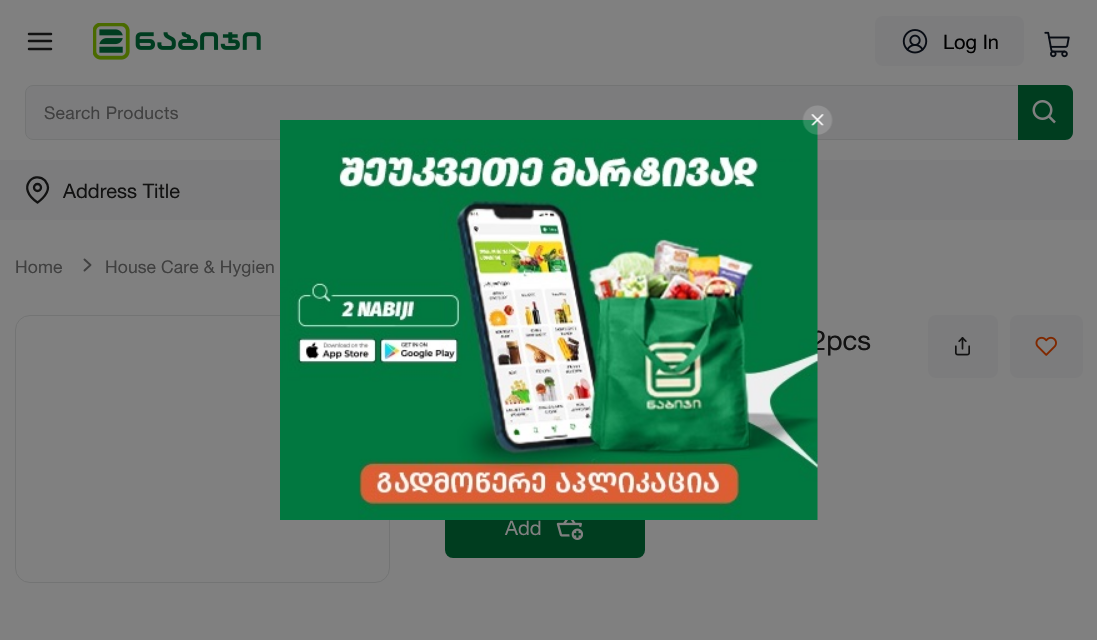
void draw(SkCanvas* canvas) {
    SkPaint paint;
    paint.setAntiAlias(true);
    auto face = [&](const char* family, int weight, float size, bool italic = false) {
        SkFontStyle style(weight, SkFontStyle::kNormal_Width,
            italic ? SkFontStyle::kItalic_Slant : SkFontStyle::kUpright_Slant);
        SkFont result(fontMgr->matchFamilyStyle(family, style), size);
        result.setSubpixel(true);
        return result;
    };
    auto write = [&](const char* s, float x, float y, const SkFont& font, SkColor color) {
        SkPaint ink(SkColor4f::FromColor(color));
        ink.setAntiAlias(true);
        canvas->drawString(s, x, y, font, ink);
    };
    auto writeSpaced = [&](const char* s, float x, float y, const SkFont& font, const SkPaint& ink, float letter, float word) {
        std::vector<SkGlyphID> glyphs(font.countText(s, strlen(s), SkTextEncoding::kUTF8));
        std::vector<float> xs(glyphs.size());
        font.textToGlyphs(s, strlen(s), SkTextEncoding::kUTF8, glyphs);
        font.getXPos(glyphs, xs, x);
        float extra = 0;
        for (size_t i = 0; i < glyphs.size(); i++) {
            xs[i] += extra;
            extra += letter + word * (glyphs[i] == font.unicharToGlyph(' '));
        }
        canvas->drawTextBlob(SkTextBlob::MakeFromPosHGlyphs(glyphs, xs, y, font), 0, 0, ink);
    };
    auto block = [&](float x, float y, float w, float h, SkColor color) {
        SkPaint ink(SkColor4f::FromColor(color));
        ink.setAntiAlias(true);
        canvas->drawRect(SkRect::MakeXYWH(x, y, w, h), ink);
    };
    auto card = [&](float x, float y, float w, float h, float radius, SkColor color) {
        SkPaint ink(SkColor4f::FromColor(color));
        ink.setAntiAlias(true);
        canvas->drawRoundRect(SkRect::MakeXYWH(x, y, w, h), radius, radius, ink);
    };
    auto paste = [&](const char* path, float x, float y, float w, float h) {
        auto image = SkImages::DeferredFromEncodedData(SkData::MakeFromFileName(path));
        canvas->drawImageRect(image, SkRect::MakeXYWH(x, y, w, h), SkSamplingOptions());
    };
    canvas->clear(SkColorSetRGB(128, 128, 128));
    paint.setStyle(SkPaint::kStroke_Style);
    paint.setStrokeWidth(2.5f);
    paint.setStrokeCap(SkPaint::kRound_Cap);
    paint.setStrokeJoin(SkPaint::kRound_Join);
    paint.setColor(SkColorSetRGB(18, 18, 18));
    canvas->drawPath(SkPathBuilder().moveTo(29, 41).lineTo(51, 41).moveTo(29, 34).lineTo(51, 34).moveTo(29, 49).lineTo(51, 49).detach(), paint);
    paste("pic1.png", 93, 23, 168, 37);
    card(875, 16, 149, 50, 8, SkColorSetRGB(124, 124, 125));
    paste("pic2.png", 902, 29, 26, 25);
    auto kFont1 = face("Helvetica Neue", 400, 20);
    write("Log In", 943, 49, kFont1, SK_ColorBLACK);
    paste("pic3.png", 1044, 31, 26, 27);
    paint.setStyle(SkPaint::kFill_Style);
    paint.setColor(SkColorSetRGB(124, 124, 125));
    canvas->drawRoundRect(SkRect::MakeXYWH(25.5f, 85.5f, 1047, 54), 7.5f, 7.5f, paint);
    paint.setStyle(SkPaint::kStroke_Style);
    paint.setStrokeWidth(1);
    paint.setStrokeCap(SkPaint::kButt_Cap);
    paint.setStrokeJoin(SkPaint::kMiter_Join);
    paint.setColor(SkColorSetRGB(115, 116, 116));
    canvas->drawRoundRect(SkRect::MakeXYWH(25.5f, 85.5f, 1047, 54), 7.5f, 7.5f, paint);
    auto kFont2 = face("Helvetica Neue", 400, 17.5f);
    paint.setStyle(SkPaint::kFill_Style);
    paint.setColor(SkColorSetRGB(64, 64, 64));
    writeSpaced("Search Products", 44, 119, kFont2, paint, 0.25f, 0);
    paint.setColor(SkColorSetRGB(0, 61, 31));
    canvas->drawPath(SkPathBuilder().moveTo(1018, 85).lineTo(1065, 85).cubicTo(1069.5f, 85, 1073, 88.5f, 1073, 93).lineTo(1073, 132).cubicTo(1073, 136.5f, 1069.5f, 140, 1065, 140).lineTo(1018, 140).close().detach(), paint);
    paste("pic4.png", 1032, 100, 24, 24);
    block(0, 160, 1097, 60, SkColorSetRGB(124, 124, 125));
    paint.setStyle(SkPaint::kStroke_Style);
    paint.setStrokeWidth(2.3f);
    paint.setStrokeCap(SkPaint::kRound_Cap);
    paint.setStrokeJoin(SkPaint::kRound_Join);
    paint.setColor(SkColorSetRGB(18, 18, 18));
    canvas->drawPath(SkPathBuilder().moveTo(48, 187.5f).cubicTo(48, 195.5f, 37.5f, 202.5f, 37.5f, 202.5f).cubicTo(15.5f, 188, 34, 170, 45, 180.5f).cubicTo(46.5f, 182.5f, 48, 185, 48, 187.5f).close().detach(), paint);
    paint.setStrokeCap(SkPaint::kButt_Cap);
    paint.setStrokeJoin(SkPaint::kMiter_Join);
    canvas->drawCircle(37.5f, 187.5f, 3.5f, paint);
    write("Address Title", 63, 198, kFont1, SkColorSetRGB(18, 18, 18));
    paint.setStyle(SkPaint::kFill_Style);
    paint.setColor(SkColorSetRGB(64, 64, 64));
    writeSpaced("Home", 15, 273, kFont2, paint, 0.1f, 0);
    paint.setStyle(SkPaint::kStroke_Style);
    paint.setStrokeWidth(1.9f);
    paint.setStrokeCap(SkPaint::kRound_Cap);
    paint.setStrokeJoin(SkPaint::kRound_Join);
    canvas->drawPath(SkPathBuilder().moveTo(84.5f, 270.5f).lineTo(90.5f, 265).lineTo(84.5f, 259.5f).detach(), paint);
    paint.setStyle(SkPaint::kFill_Style);
    writeSpaced("House Care & Hygien", 105, 273, kFont2, paint, 0.1f, 0);
    paint.setStyle(SkPaint::kStroke_Style);
    paint.setStrokeWidth(1);
    paint.setStrokeCap(SkPaint::kButt_Cap);
    paint.setStrokeJoin(SkPaint::kMiter_Join);
    paint.setColor(SkColorSetRGB(115, 116, 116));
    canvas->drawRoundRect(SkRect::MakeXYWH(15.5f, 315.5f, 374, 267), 14.5f, 14.5f, paint);
    auto kFont3 = face("Helvetica Neue", 400, 27.5f);
    write("2pcs", 811, 350, kFont3, SkColorSetRGB(18, 18, 18));
    card(928, 315, 70, 63, 8, SkColorSetRGB(124, 124, 125));
    paste("pic5.png", 955, 337, 15, 19);
    card(1010, 315, 73, 63, 8, SkColorSetRGB(124, 124, 125));
    paste("pic6.png", 1035, 336, 22, 20);
    card(445, 498, 200, 60, 8, SkColorSetRGB(0, 61, 31));
    write("Add", 505, 535, kFont1, SkColorSetRGB(128, 128, 128));
    paste("pic7.png", 556, 520, 27, 20);
    paste("pic9.png", 280, 120, 538, 400);
    paste("pic8.png", 802, 105, 31, 30);
}
